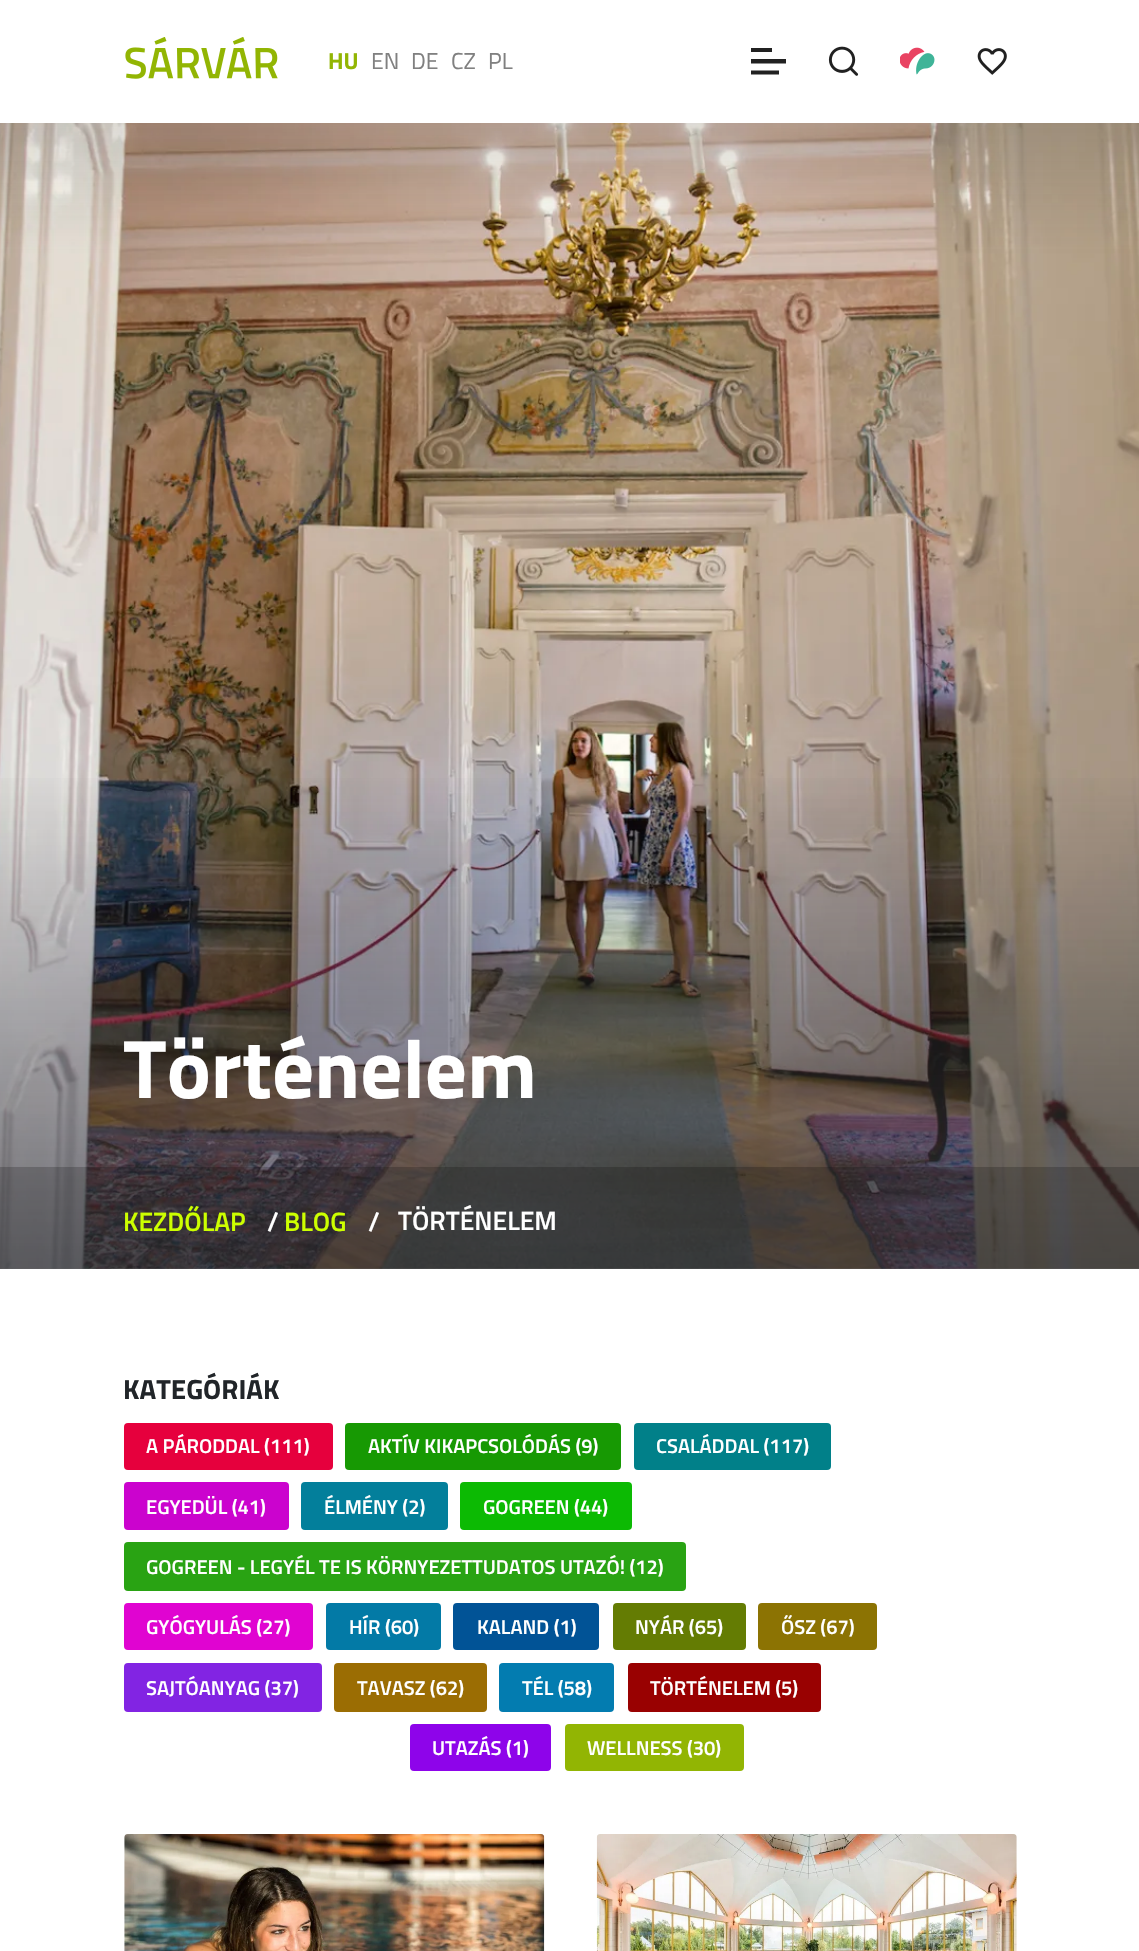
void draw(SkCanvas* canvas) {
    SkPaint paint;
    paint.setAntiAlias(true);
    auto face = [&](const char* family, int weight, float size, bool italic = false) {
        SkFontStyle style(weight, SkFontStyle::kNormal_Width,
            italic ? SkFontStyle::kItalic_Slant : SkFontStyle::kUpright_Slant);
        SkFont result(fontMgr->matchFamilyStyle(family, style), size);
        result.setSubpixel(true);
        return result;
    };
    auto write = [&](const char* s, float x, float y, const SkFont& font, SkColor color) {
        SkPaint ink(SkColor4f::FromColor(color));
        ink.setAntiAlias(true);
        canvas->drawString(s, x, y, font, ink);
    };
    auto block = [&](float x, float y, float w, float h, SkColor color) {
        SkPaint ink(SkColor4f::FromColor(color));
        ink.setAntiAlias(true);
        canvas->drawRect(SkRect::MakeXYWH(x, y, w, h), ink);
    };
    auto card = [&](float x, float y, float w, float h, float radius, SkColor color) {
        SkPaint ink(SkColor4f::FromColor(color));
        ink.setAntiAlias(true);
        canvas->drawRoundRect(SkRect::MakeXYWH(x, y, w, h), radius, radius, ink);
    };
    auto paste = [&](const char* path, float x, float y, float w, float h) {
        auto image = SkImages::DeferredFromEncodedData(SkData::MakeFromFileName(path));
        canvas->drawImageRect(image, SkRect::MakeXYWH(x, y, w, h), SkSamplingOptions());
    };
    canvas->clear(SK_ColorWHITE);
    paste("pic1.png", 125, 37, 153, 42);
    auto kFont1 = face("Titillium Web", 700, 23);
    write("HU", 328, 69, kFont1, SkColorSetRGB(146, 181, 3));
    auto kFont2 = face("Titillium Web", 400, 23);
    write("EN", 371, 69, kFont2, SkColorSetRGB(128, 128, 128));
    write("DE", 411, 69, kFont2, SkColorSetRGB(128, 128, 128));
    write("CZ", 451, 69, kFont2, SkColorSetRGB(128, 128, 128));
    write("PL", 488, 69, kFont2, SkColorSetRGB(128, 128, 128));
    paint.setColor(SkColorSetRGB(33, 33, 33));
    canvas->drawPath(SkPathBuilder().moveTo(779, 70.5f).lineTo(779, 74.5f).lineTo(751, 74.5f).lineTo(751, 70.5f).close().moveTo(786, 59).lineTo(786, 63.5f).lineTo(751, 63.5f).lineTo(751, 59).close().moveTo(772, 48).lineTo(772, 52).lineTo(751, 52).lineTo(751, 48).close().detach(), paint);
    paste("pic2.png", 828, 46, 31, 30);
    paste("pic3.png", 900, 47, 35, 28);
    paste("pic4.png", 977, 48, 30, 27);
    paste("pic5.png", 0, 123, 1139, 1146);
    {
        const SkColor colors[] = {SkColorSetARGB(166, 66, 66, 66), SkColorSetARGB(0, 66, 66, 66)};
        const float stops[] = {0, 1};
        const SkPoint ends[] = {{570, 1269}, {570, 761}};
        paint.setShader(SkGradientShader::MakeLinear(ends, colors, stops, 2, SkTileMode::kClamp));
        paint.setAlpha(255);
    }
    canvas->drawRect(SkRect::MakeXYWH(0, 778, 1139, 491), paint);
    auto kFont3 = face("Titillium Web", 700, 83);
    write("Történelem", 123, 1098, kFont3, SK_ColorWHITE);
    block(0, 1167, 1139, 102, SkColorSetARGB(51, 0, 0, 0));
    auto kFont4 = face("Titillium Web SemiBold", 600, 26.5f);
    write("KEZDŐLAP", 123, 1231, kFont4, SkColorSetRGB(205, 255, 0));
    write("/", 267, 1231, kFont4, SK_ColorWHITE);
    write("BLOG", 284, 1231, kFont4, SkColorSetRGB(205, 255, 0));
    write("/", 368, 1231, kFont4, SK_ColorWHITE);
    write("TÖRTÉNELEM", 398, 1230, kFont4, SK_ColorWHITE);
    auto kFont5 = face("Titillium Web", 700, 27.75f);
    write("KATEGÓRIÁK", 123, 1399, kFont5, SkColorSetRGB(33, 37, 41));
    card(124, 1423, 209, 47, 4, SkColorSetRGB(230, 0, 61));
    auto kFont6 = face("Titillium Web SemiBold", 600, 20.15f);
    write("A PÁRODDAL (111)", 146, 1453, kFont6, SK_ColorWHITE);
    card(345, 1423, 276, 47, 4, SkColorSetRGB(23, 153, 3));
    write("AKTÍV KIKAPCSOLÓDÁS (9)", 368, 1453, kFont6, SK_ColorWHITE);
    card(634, 1423, 197, 47, 4, SkColorSetRGB(1, 128, 137));
    write("CSALÁDDAL (117)", 656, 1453, kFont6, SK_ColorWHITE);
    card(124, 1482, 165, 48, 4, SkColorSetRGB(203, 3, 206));
    write("EGYEDÜL (41)", 146, 1514, kFont6, SK_ColorWHITE);
    card(301, 1482, 147, 48, 4, SkColorSetRGB(3, 127, 155));
    write("ÉLMÉNY (2)", 324, 1514, kFont6, SK_ColorWHITE);
    card(460, 1482, 172, 48, 4, SkColorSetRGB(12, 186, 3));
    write("GOGREEN (44)", 483, 1514, kFont6, SK_ColorWHITE);
    card(124, 1542, 562, 49, 4, SkColorSetRGB(41, 163, 19));
    write("GOGREEN - LEGYÉL TE IS KÖRNYEZETTUDATOS UTAZÓ! (12)", 146, 1574, kFont6, SK_ColorWHITE);
    card(124, 1603, 189, 47, 4, SkColorSetRGB(224, 4, 209));
    write("GYÓGYULÁS (27)", 146, 1634, kFont6, SK_ColorWHITE);
    card(326, 1603, 115, 47, 4, SkColorSetRGB(3, 122, 166));
    write("HÍR (60)", 349, 1634, kFont6, SK_ColorWHITE);
    card(453, 1603, 146, 47, 4, SkColorSetRGB(1, 83, 150));
    write("KALAND (1)", 477, 1634, kFont6, SK_ColorWHITE);
    card(613, 1603, 133, 47, 4, SkColorSetRGB(100, 124, 3));
    write("NYÁR (65)", 635, 1634, kFont6, SK_ColorWHITE);
    card(758, 1603, 119, 47, 4, SkColorSetRGB(140, 115, 3));
    write("ŐSZ (67)", 781, 1634, kFont6, SK_ColorWHITE);
    card(124, 1663, 198, 49, 4, SkColorSetRGB(130, 36, 227));
    write("SAJTÓANYAG (37)", 146, 1695, kFont6, SK_ColorWHITE);
    card(334, 1663, 153, 49, 4, SkColorSetRGB(155, 109, 3));
    write("TAVASZ (62)", 357, 1695, kFont6, SK_ColorWHITE);
    card(499, 1663, 115, 49, 4, SkColorSetRGB(3, 124, 176));
    write("TÉL (58)", 522, 1695, kFont6, SK_ColorWHITE);
    card(628, 1663, 193, 49, 4, SkColorSetRGB(153, 1, 1));
    write("TÖRTÉNELEM (5)", 650, 1695, kFont6, SK_ColorWHITE);
    card(410, 1724, 141, 47, 4, SkColorSetRGB(142, 4, 234));
    write("UTAZÁS (1)", 432, 1755, kFont6, SK_ColorWHITE);
    card(565, 1724, 179, 47, 4, SkColorSetRGB(146, 181, 3));
    write("WELLNESS (30)", 587, 1755, kFont6, SK_ColorWHITE);
    paste("pic6.png", 124, 1834, 421, 117);
    paste("pic7.png", 596, 1834, 421, 117);
}
